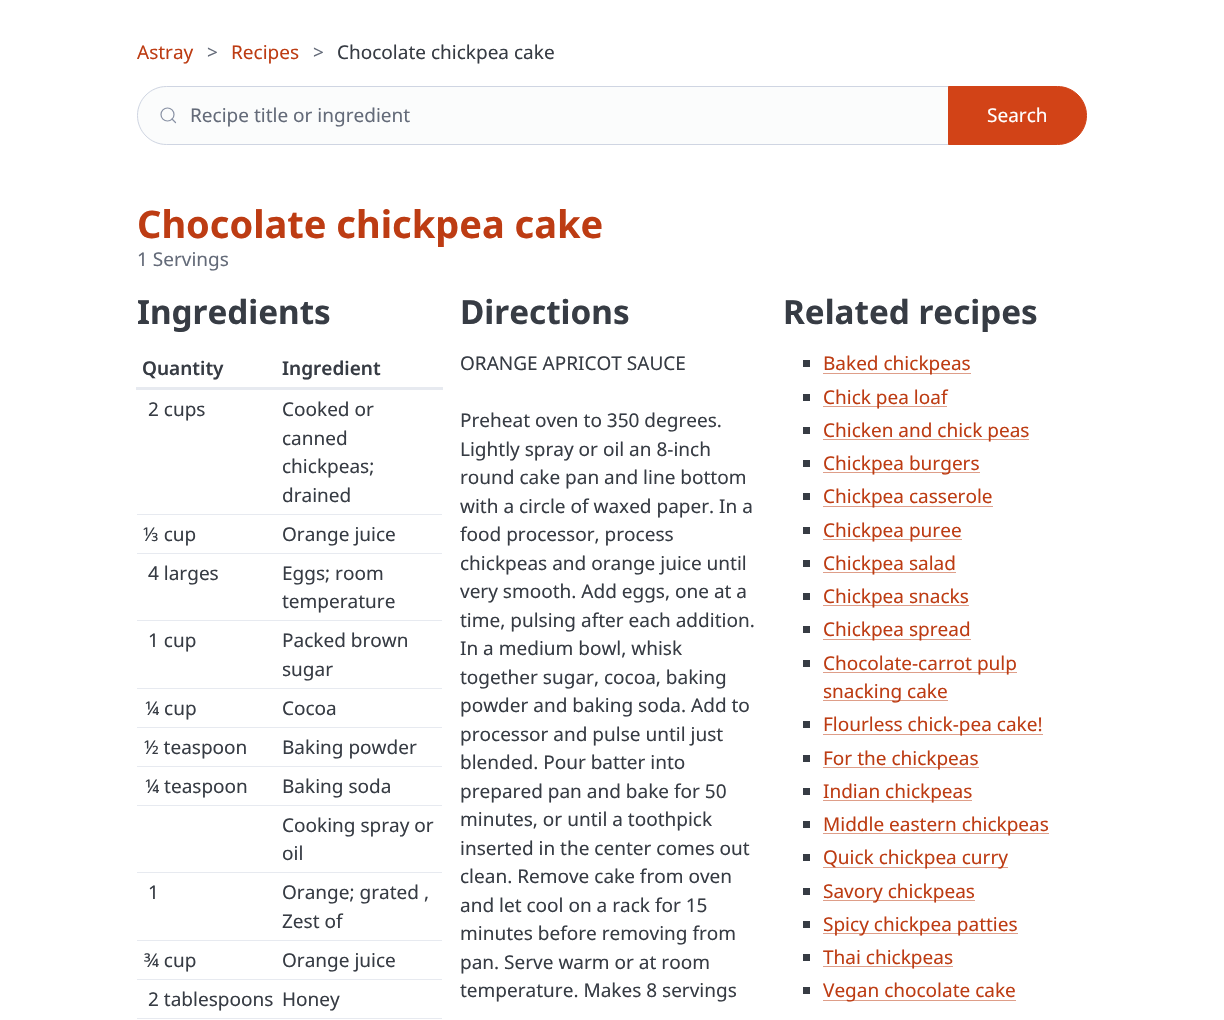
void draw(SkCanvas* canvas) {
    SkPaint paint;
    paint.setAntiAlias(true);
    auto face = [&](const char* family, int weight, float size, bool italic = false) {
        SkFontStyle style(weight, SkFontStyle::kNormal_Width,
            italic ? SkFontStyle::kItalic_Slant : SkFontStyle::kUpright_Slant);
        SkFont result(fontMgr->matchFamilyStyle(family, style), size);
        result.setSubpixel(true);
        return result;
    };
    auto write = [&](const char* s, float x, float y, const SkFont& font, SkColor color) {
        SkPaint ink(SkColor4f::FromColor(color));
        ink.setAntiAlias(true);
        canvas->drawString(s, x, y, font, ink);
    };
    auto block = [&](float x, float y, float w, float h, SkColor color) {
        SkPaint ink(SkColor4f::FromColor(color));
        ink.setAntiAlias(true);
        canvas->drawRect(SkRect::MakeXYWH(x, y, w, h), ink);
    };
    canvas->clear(SK_ColorWHITE);
    auto kFont1 = face("Noto Sans", 400, 19);
    write("Astray", 137, 59, kFont1, SkColorSetRGB(189, 60, 19));
    write(">", 207, 59, kFont1, SkColorSetRGB(100, 107, 121));
    write("Recipes", 231, 59, kFont1, SkColorSetRGB(189, 60, 19));
    write(">", 313, 59, kFont1, SkColorSetRGB(100, 107, 121));
    write("Chocolate chickpea cake", 337, 59, kFont1, SkColorSetRGB(55, 60, 68));
    paint.setColor(SkColorSetRGB(251, 252, 252));
    canvas->drawPath(SkPathBuilder().moveTo(166.5f, 86).lineTo(950, 86).lineTo(950, 145).lineTo(166.5f, 145).cubicTo(150, 145, 137, 132, 137, 115.5f).cubicTo(137, 99, 150, 86, 166.5f, 86).close().detach(), paint);
    paint.setStyle(SkPaint::kStroke_Style);
    paint.setStrokeWidth(1.2f);
    paint.setColor(SkColorSetRGB(136, 145, 164));
    canvas->drawCircle(167.5f, 114.5f, 6.5f, paint);
    paint.setStrokeCap(SkPaint::kRound_Cap);
    paint.setStrokeJoin(SkPaint::kRound_Join);
    canvas->drawPath(SkPathBuilder().moveTo(175.5f, 122.5f).lineTo(172, 119).detach(), paint);
    paint.setStrokeWidth(1);
    paint.setStrokeCap(SkPaint::kButt_Cap);
    paint.setStrokeJoin(SkPaint::kMiter_Join);
    paint.setColor(SkColorSetRGB(207, 213, 226));
    canvas->drawPath(SkPathBuilder().moveTo(166.5f, 86.5f).lineTo(949.5f, 86.5f).lineTo(949.5f, 144.5f).lineTo(166.5f, 144.5f).cubicTo(150.5f, 144.5f, 137.5f, 131.5f, 137.5f, 115.5f).cubicTo(137.5f, 99.5f, 150.5f, 86.5f, 166.5f, 86.5f).close().detach(), paint);
    write("Recipe title or ingredient", 190, 122, kFont1, SkColorSetRGB(100, 107, 121));
    paint.setStyle(SkPaint::kFill_Style);
    paint.setColor(SkColorSetRGB(210, 67, 23));
    canvas->drawPath(SkPathBuilder().moveTo(948.5f, 86.5f).lineTo(1057.5f, 86.5f).cubicTo(1073.5f, 86.5f, 1086.5f, 99.5f, 1086.5f, 115.5f).cubicTo(1086.5f, 131.5f, 1073.5f, 144.5f, 1057.5f, 144.5f).lineTo(948.5f, 144.5f).close().detach(), paint);
    paint.setStyle(SkPaint::kStroke_Style);
    canvas->drawPath(SkPathBuilder().moveTo(948.5f, 86.5f).lineTo(1057.5f, 86.5f).cubicTo(1073.5f, 86.5f, 1086.5f, 99.5f, 1086.5f, 115.5f).cubicTo(1086.5f, 131.5f, 1073.5f, 144.5f, 1057.5f, 144.5f).lineTo(948.5f, 144.5f).close().detach(), paint);
    write("Search", 987, 122, kFont1, SK_ColorWHITE);
    auto kFont2 = face("Noto Sans", 700, 38);
    write("Chocolate chickpea cake", 137, 238, kFont2, SkColorSetRGB(189, 60, 19));
    write("1 Servings", 137, 266, kFont1, SkColorSetRGB(100, 107, 121));
    auto kFont3 = face("Noto Sans", 700, 33.25f);
    write("Ingredients", 137, 324, kFont3, SkColorSetRGB(55, 60, 68));
    auto kFont4 = face("Noto Sans", 600, 19);
    write("Quantity", 142, 375, kFont4, SkColorSetRGB(55, 60, 68));
    block(136, 387, 307, 3, SkColorSetRGB(231, 234, 240));
    write("Ingredient", 282, 375, kFont4, SkColorSetRGB(55, 60, 68));
    write("2 cups", 148, 416, kFont1, SkColorSetRGB(55, 60, 68));
    block(137, 514, 305, 1, SkColorSetRGB(231, 234, 240));
    write("Cooked or", 282, 416, kFont1, SkColorSetRGB(55, 60, 68));
    write("canned", 282, 445, kFont1, SkColorSetRGB(55, 60, 68));
    write("chickpeas;", 282, 473, kFont1, SkColorSetRGB(55, 60, 68));
    write("drained", 282, 502, kFont1, SkColorSetRGB(55, 60, 68));
    write("⅓ cup", 143, 541, kFont1, SkColorSetRGB(55, 60, 68));
    block(137, 553, 305, 1, SkColorSetRGB(231, 234, 240));
    write("Orange juice", 282, 541, kFont1, SkColorSetRGB(55, 60, 68));
    write("4 larges", 148, 580, kFont1, SkColorSetRGB(55, 60, 68));
    block(137, 620, 305, 1, SkColorSetRGB(231, 234, 240));
    write("Eggs; room", 282, 580, kFont1, SkColorSetRGB(55, 60, 68));
    write("temperature", 282, 608, kFont1, SkColorSetRGB(55, 60, 68));
    write("1 cup", 148, 647, kFont1, SkColorSetRGB(55, 60, 68));
    block(137, 688, 305, 1, SkColorSetRGB(231, 234, 240));
    write("Packed brown", 282, 647, kFont1, SkColorSetRGB(55, 60, 68));
    write("sugar", 282, 676, kFont1, SkColorSetRGB(55, 60, 68));
    write("¼ cup", 145, 715, kFont1, SkColorSetRGB(55, 60, 68));
    block(137, 727, 305, 1, SkColorSetRGB(231, 234, 240));
    write("Cocoa", 282, 715, kFont1, SkColorSetRGB(55, 60, 68));
    write("½ teaspoon", 144, 754, kFont1, SkColorSetRGB(55, 60, 68));
    block(137, 766, 305, 1, SkColorSetRGB(231, 234, 240));
    write("Baking powder", 282, 754, kFont1, SkColorSetRGB(55, 60, 68));
    write("¼ teaspoon", 145, 793, kFont1, SkColorSetRGB(55, 60, 68));
    block(137, 805, 305, 1, SkColorSetRGB(231, 234, 240));
    write("Baking soda", 282, 793, kFont1, SkColorSetRGB(55, 60, 68));
    block(137, 872, 305, 1, SkColorSetRGB(231, 234, 240));
    write("Cooking spray or", 282, 832, kFont1, SkColorSetRGB(55, 60, 68));
    write("oil", 282, 860, kFont1, SkColorSetRGB(55, 60, 68));
    write("1", 148, 899, kFont1, SkColorSetRGB(55, 60, 68));
    block(137, 940, 305, 1, SkColorSetRGB(231, 234, 240));
    write("Orange; grated ,", 282, 899, kFont1, SkColorSetRGB(55, 60, 68));
    write("Zest of", 282, 928, kFont1, SkColorSetRGB(55, 60, 68));
    write("¾ cup", 144, 967, kFont1, SkColorSetRGB(55, 60, 68));
    block(137, 979, 305, 1, SkColorSetRGB(231, 234, 240));
    write("Orange juice", 282, 967, kFont1, SkColorSetRGB(55, 60, 68));
    write("2 tablespoons", 148, 1006, kFont1, SkColorSetRGB(55, 60, 68));
    block(137, 1018, 305, 1, SkColorSetRGB(231, 234, 240));
    write("Honey", 282, 1006, kFont1, SkColorSetRGB(55, 60, 68));
    write("Directions", 460, 324, kFont3, SkColorSetRGB(55, 60, 68));
    write("ORANGE APRICOT SAUCE", 460, 370, kFont1, SkColorSetRGB(55, 60, 68));
    write("Preheat oven to 350 degrees.", 460, 427, kFont1, SkColorSetRGB(55, 60, 68));
    write("Lightly spray or oil an 8-inch", 460, 456, kFont1, SkColorSetRGB(55, 60, 68));
    write("round cake pan and line bottom", 460, 484, kFont1, SkColorSetRGB(55, 60, 68));
    write("with a circle of waxed paper. In a", 460, 513, kFont1, SkColorSetRGB(55, 60, 68));
    write("food processor, process", 460, 541, kFont1, SkColorSetRGB(55, 60, 68));
    write("chickpeas and orange juice until", 460, 570, kFont1, SkColorSetRGB(55, 60, 68));
    write("very smooth. Add eggs, one at a", 460, 598, kFont1, SkColorSetRGB(55, 60, 68));
    write("time, pulsing after each addition.", 460, 627, kFont1, SkColorSetRGB(55, 60, 68));
    write("In a medium bowl, whisk", 460, 655, kFont1, SkColorSetRGB(55, 60, 68));
    write("together sugar, cocoa, baking", 460, 684, kFont1, SkColorSetRGB(55, 60, 68));
    write("powder and baking soda. Add to", 460, 712, kFont1, SkColorSetRGB(55, 60, 68));
    write("processor and pulse until just", 460, 741, kFont1, SkColorSetRGB(55, 60, 68));
    write("blended. Pour batter into", 460, 769, kFont1, SkColorSetRGB(55, 60, 68));
    write("prepared pan and bake for 50", 460, 798, kFont1, SkColorSetRGB(55, 60, 68));
    write("minutes, or until a toothpick", 460, 826, kFont1, SkColorSetRGB(55, 60, 68));
    write("inserted in the center comes out", 460, 855, kFont1, SkColorSetRGB(55, 60, 68));
    write("clean. Remove cake from oven", 460, 883, kFont1, SkColorSetRGB(55, 60, 68));
    write("and let cool on a rack for 15", 460, 912, kFont1, SkColorSetRGB(55, 60, 68));
    write("minutes before removing from", 460, 940, kFont1, SkColorSetRGB(55, 60, 68));
    write("pan. Serve warm or at room", 460, 969, kFont1, SkColorSetRGB(55, 60, 68));
    write("temperature. Makes 8 servings", 460, 997, kFont1, SkColorSetRGB(55, 60, 68));
    write("Related recipes", 783, 324, kFont3, SkColorSetRGB(55, 60, 68));
    block(803, 360, 7, 7, SkColorSetRGB(55, 60, 68));
    block(823, 373, 148, 1, SkColorSetRGB(222, 158, 137));
    write("Baked chickpeas", 823, 370, kFont1, SkColorSetRGB(189, 60, 19));
    block(803, 394, 7, 7, SkColorSetRGB(55, 60, 68));
    block(823, 406, 124, 1, SkColorSetRGB(222, 158, 137));
    write("Chick pea loaf", 823, 404, kFont1, SkColorSetRGB(189, 60, 19));
    block(803, 427, 7, 7, SkColorSetRGB(55, 60, 68));
    block(823, 439, 206, 1, SkColorSetRGB(222, 158, 137));
    write("Chicken and chick peas", 823, 437, kFont1, SkColorSetRGB(189, 60, 19));
    block(803, 460, 7, 7, SkColorSetRGB(55, 60, 68));
    block(823, 472, 157, 1, SkColorSetRGB(222, 158, 137));
    write("Chickpea burgers", 823, 470, kFont1, SkColorSetRGB(189, 60, 19));
    block(803, 493, 7, 7, SkColorSetRGB(55, 60, 68));
    block(823, 506, 170, 1, SkColorSetRGB(222, 158, 137));
    write("Chickpea casserole", 823, 503, kFont1, SkColorSetRGB(189, 60, 19));
    block(803, 527, 7, 7, SkColorSetRGB(55, 60, 68));
    block(823, 539, 139, 1, SkColorSetRGB(222, 158, 137));
    write("Chickpea puree", 823, 537, kFont1, SkColorSetRGB(189, 60, 19));
    block(803, 560, 7, 7, SkColorSetRGB(55, 60, 68));
    block(823, 572, 133, 1, SkColorSetRGB(222, 158, 137));
    write("Chickpea salad", 823, 570, kFont1, SkColorSetRGB(189, 60, 19));
    block(803, 593, 7, 7, SkColorSetRGB(55, 60, 68));
    block(823, 605, 146, 1, SkColorSetRGB(222, 158, 137));
    write("Chickpea snacks", 823, 603, kFont1, SkColorSetRGB(189, 60, 19));
    block(803, 626, 7, 7, SkColorSetRGB(55, 60, 68));
    block(823, 639, 148, 1, SkColorSetRGB(222, 158, 137));
    write("Chickpea spread", 823, 636, kFont1, SkColorSetRGB(189, 60, 19));
    block(803, 660, 7, 7, SkColorSetRGB(55, 60, 68));
    block(823, 672, 194, 1, SkColorSetRGB(222, 158, 137));
    write("Chocolate-carrot pulp", 823, 670, kFont1, SkColorSetRGB(189, 60, 19));
    block(823, 700, 125, 1, SkColorSetRGB(222, 158, 137));
    write("snacking cake", 823, 698, kFont1, SkColorSetRGB(189, 60, 19));
    block(803, 721, 7, 7, SkColorSetRGB(55, 60, 68));
    block(823, 734, 220, 1, SkColorSetRGB(222, 158, 137));
    write("Flourless chick-pea cake!", 823, 731, kFont1, SkColorSetRGB(189, 60, 19));
    block(803, 755, 7, 7, SkColorSetRGB(55, 60, 68));
    block(823, 767, 156, 1, SkColorSetRGB(222, 158, 137));
    write("For the chickpeas", 823, 765, kFont1, SkColorSetRGB(189, 60, 19));
    block(803, 788, 7, 7, SkColorSetRGB(55, 60, 68));
    block(823, 800, 149, 1, SkColorSetRGB(222, 158, 137));
    write("Indian chickpeas", 823, 798, kFont1, SkColorSetRGB(189, 60, 19));
    block(803, 821, 7, 7, SkColorSetRGB(55, 60, 68));
    block(823, 833, 226, 1, SkColorSetRGB(222, 158, 137));
    write("Middle eastern chickpeas", 823, 831, kFont1, SkColorSetRGB(189, 60, 19));
    block(803, 854, 7, 7, SkColorSetRGB(55, 60, 68));
    block(823, 867, 185, 1, SkColorSetRGB(222, 158, 137));
    write("Quick chickpea curry", 823, 864, kFont1, SkColorSetRGB(189, 60, 19));
    block(803, 888, 7, 7, SkColorSetRGB(55, 60, 68));
    block(823, 900, 152, 1, SkColorSetRGB(222, 158, 137));
    write("Savory chickpeas", 823, 898, kFont1, SkColorSetRGB(189, 60, 19));
    block(803, 921, 7, 7, SkColorSetRGB(55, 60, 68));
    block(823, 933, 195, 1, SkColorSetRGB(222, 158, 137));
    write("Spicy chickpea patties", 823, 931, kFont1, SkColorSetRGB(189, 60, 19));
    block(803, 954, 7, 7, SkColorSetRGB(55, 60, 68));
    block(823, 966, 130, 1, SkColorSetRGB(222, 158, 137));
    write("Thai chickpeas", 823, 964, kFont1, SkColorSetRGB(189, 60, 19));
    block(803, 987, 7, 7, SkColorSetRGB(55, 60, 68));
    block(823, 1000, 193, 1, SkColorSetRGB(222, 158, 137));
    write("Vegan chocolate cake", 823, 997, kFont1, SkColorSetRGB(189, 60, 19));
}
